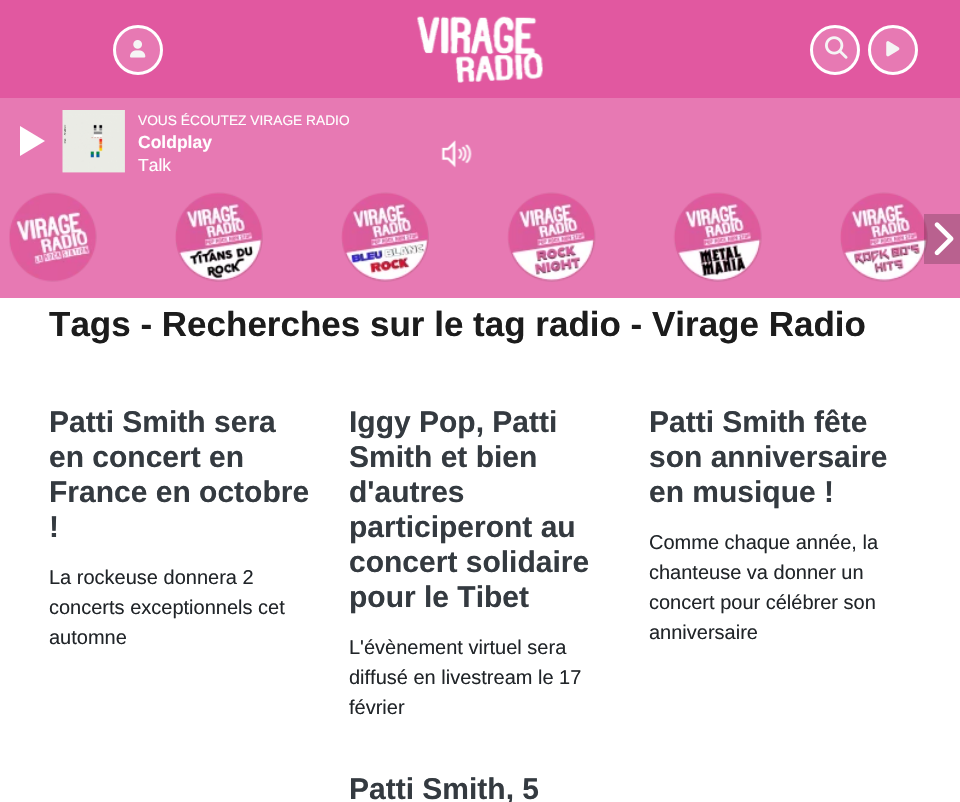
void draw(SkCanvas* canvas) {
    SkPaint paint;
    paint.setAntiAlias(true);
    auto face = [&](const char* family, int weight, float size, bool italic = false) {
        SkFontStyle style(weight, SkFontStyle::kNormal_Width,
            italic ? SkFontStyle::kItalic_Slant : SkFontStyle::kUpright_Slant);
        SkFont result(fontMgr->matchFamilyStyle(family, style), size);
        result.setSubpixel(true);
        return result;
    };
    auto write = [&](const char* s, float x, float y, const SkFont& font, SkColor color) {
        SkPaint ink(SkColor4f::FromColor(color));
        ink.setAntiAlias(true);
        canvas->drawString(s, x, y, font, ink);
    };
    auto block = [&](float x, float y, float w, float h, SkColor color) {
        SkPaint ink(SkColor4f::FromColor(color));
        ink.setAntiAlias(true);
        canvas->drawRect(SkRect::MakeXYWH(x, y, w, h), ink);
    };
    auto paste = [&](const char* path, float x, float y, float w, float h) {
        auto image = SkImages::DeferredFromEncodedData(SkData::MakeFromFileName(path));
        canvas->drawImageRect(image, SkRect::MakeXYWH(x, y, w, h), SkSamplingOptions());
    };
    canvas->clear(SK_ColorWHITE);
    block(0, 98, 960, 200, SkColorSetRGB(231, 121, 179));
    paste("pic1.png", 62, 110, 63, 63);
    auto kFont1 = face("Liberation Sans", 400, 13.75f);
    write("VOUS ÉCOUTEZ VIRAGE RADIO", 138, 125, kFont1, SK_ColorWHITE);
    auto kFont2 = face("Liberation Sans", 700, 17.5f);
    write("Coldplay", 138, 148, kFont2, SK_ColorWHITE);
    auto kFont3 = face("Liberation Sans", 400, 17.5f);
    write("Talk", 138, 171, kFont3, SK_ColorWHITE);
    paint.setColor(SK_ColorWHITE);
    canvas->drawPath(SkPathBuilder().moveTo(20, 156).lineTo(20, 126).lineTo(45, 141).close().detach(), paint);
    paste("pic2.png", 441, 140, 31, 28);
    paste("pic3.png", 9, 192, 88, 90);
    paste("pic4.png", 175, 192, 88, 90);
    paste("pic5.png", 341, 192, 88, 90);
    paste("pic6.png", 507, 192, 89, 90);
    paste("pic7.png", 673, 192, 89, 90);
    paste("pic8.png", 840, 192, 88, 90);
    block(924, 214, 36, 50, SkColorSetARGB(51, 0, 0, 0));
    paste("pic9.png", 934, 222, 20, 34);
    block(0, 0, 960, 98, SkColorSetRGB(225, 88, 160));
    paint.setColor(SkColorSetRGB(231, 121, 179));
    canvas->drawCircle(138, 50, 23.5f, paint);
    paint.setStyle(SkPaint::kStroke_Style);
    paint.setStrokeWidth(3);
    paint.setColor(SK_ColorWHITE);
    canvas->drawCircle(138, 50, 23.5f, paint);
    paste("pic10.png", 130, 40, 16, 18);
    paste("pic11.png", 417, 16, 126, 67);
    paint.setStyle(SkPaint::kFill_Style);
    paint.setColor(SkColorSetRGB(231, 121, 179));
    canvas->drawCircle(835, 50, 23.5f, paint);
    paint.setStyle(SkPaint::kStroke_Style);
    paint.setColor(SK_ColorWHITE);
    canvas->drawCircle(835, 50, 23.5f, paint);
    paste("pic12.png", 825, 36, 23, 23);
    paint.setStyle(SkPaint::kFill_Style);
    paint.setColor(SkColorSetRGB(231, 121, 179));
    canvas->drawCircle(893, 50, 23.5f, paint);
    paint.setStyle(SkPaint::kStroke_Style);
    paint.setColor(SK_ColorWHITE);
    canvas->drawCircle(893, 50, 23.5f, paint);
    paste("pic13.png", 886, 41, 14, 16);
    auto kFont4 = face("Liberation Sans", 700, 35);
    write("Tags - Recherches sur le tag radio - Virage Radio", 49, 336, kFont4, SkColorSetRGB(28, 28, 28));
    auto kFont5 = face("Liberation Sans", 700, 30);
    write("Patti Smith sera", 49, 432, kFont5, SkColorSetRGB(52, 58, 64));
    write("en concert en", 49, 467, kFont5, SkColorSetRGB(52, 58, 64));
    write("France en octobre", 49, 502, kFont5, SkColorSetRGB(52, 58, 64));
    write("!", 49, 537, kFont5, SkColorSetRGB(52, 58, 64));
    auto kFont6 = face("Liberation Sans", 400, 20);
    write("La rockeuse donnera 2", 49, 584, kFont6, SkColorSetRGB(33, 37, 41));
    write("concerts exceptionnels cet", 49, 614, kFont6, SkColorSetRGB(33, 37, 41));
    write("automne", 49, 644, kFont6, SkColorSetRGB(33, 37, 41));
    write("Iggy Pop, Patti", 349, 432, kFont5, SkColorSetRGB(52, 58, 64));
    write("Smith et bien", 349, 467, kFont5, SkColorSetRGB(52, 58, 64));
    write("d'autres", 349, 502, kFont5, SkColorSetRGB(52, 58, 64));
    write("participeront au", 349, 537, kFont5, SkColorSetRGB(52, 58, 64));
    write("concert solidaire", 349, 572, kFont5, SkColorSetRGB(52, 58, 64));
    write("pour le Tibet", 349, 607, kFont5, SkColorSetRGB(52, 58, 64));
    write("L'évènement virtuel sera", 349, 654, kFont6, SkColorSetRGB(33, 37, 41));
    write("diffusé en livestream le 17", 349, 684, kFont6, SkColorSetRGB(33, 37, 41));
    write("février", 349, 714, kFont6, SkColorSetRGB(33, 37, 41));
    write("Patti Smith fête", 649, 432, kFont5, SkColorSetRGB(52, 58, 64));
    write("son anniversaire", 649, 467, kFont5, SkColorSetRGB(52, 58, 64));
    write("en musique !", 649, 502, kFont5, SkColorSetRGB(52, 58, 64));
    write("Comme chaque année, la", 649, 549, kFont6, SkColorSetRGB(33, 37, 41));
    write("chanteuse va donner un", 649, 579, kFont6, SkColorSetRGB(33, 37, 41));
    write("concert pour célébrer son", 649, 609, kFont6, SkColorSetRGB(33, 37, 41));
    write("anniversaire", 649, 639, kFont6, SkColorSetRGB(33, 37, 41));
    write("Patti Smith, 5", 349, 799, kFont5, SkColorSetRGB(52, 58, 64));
}
